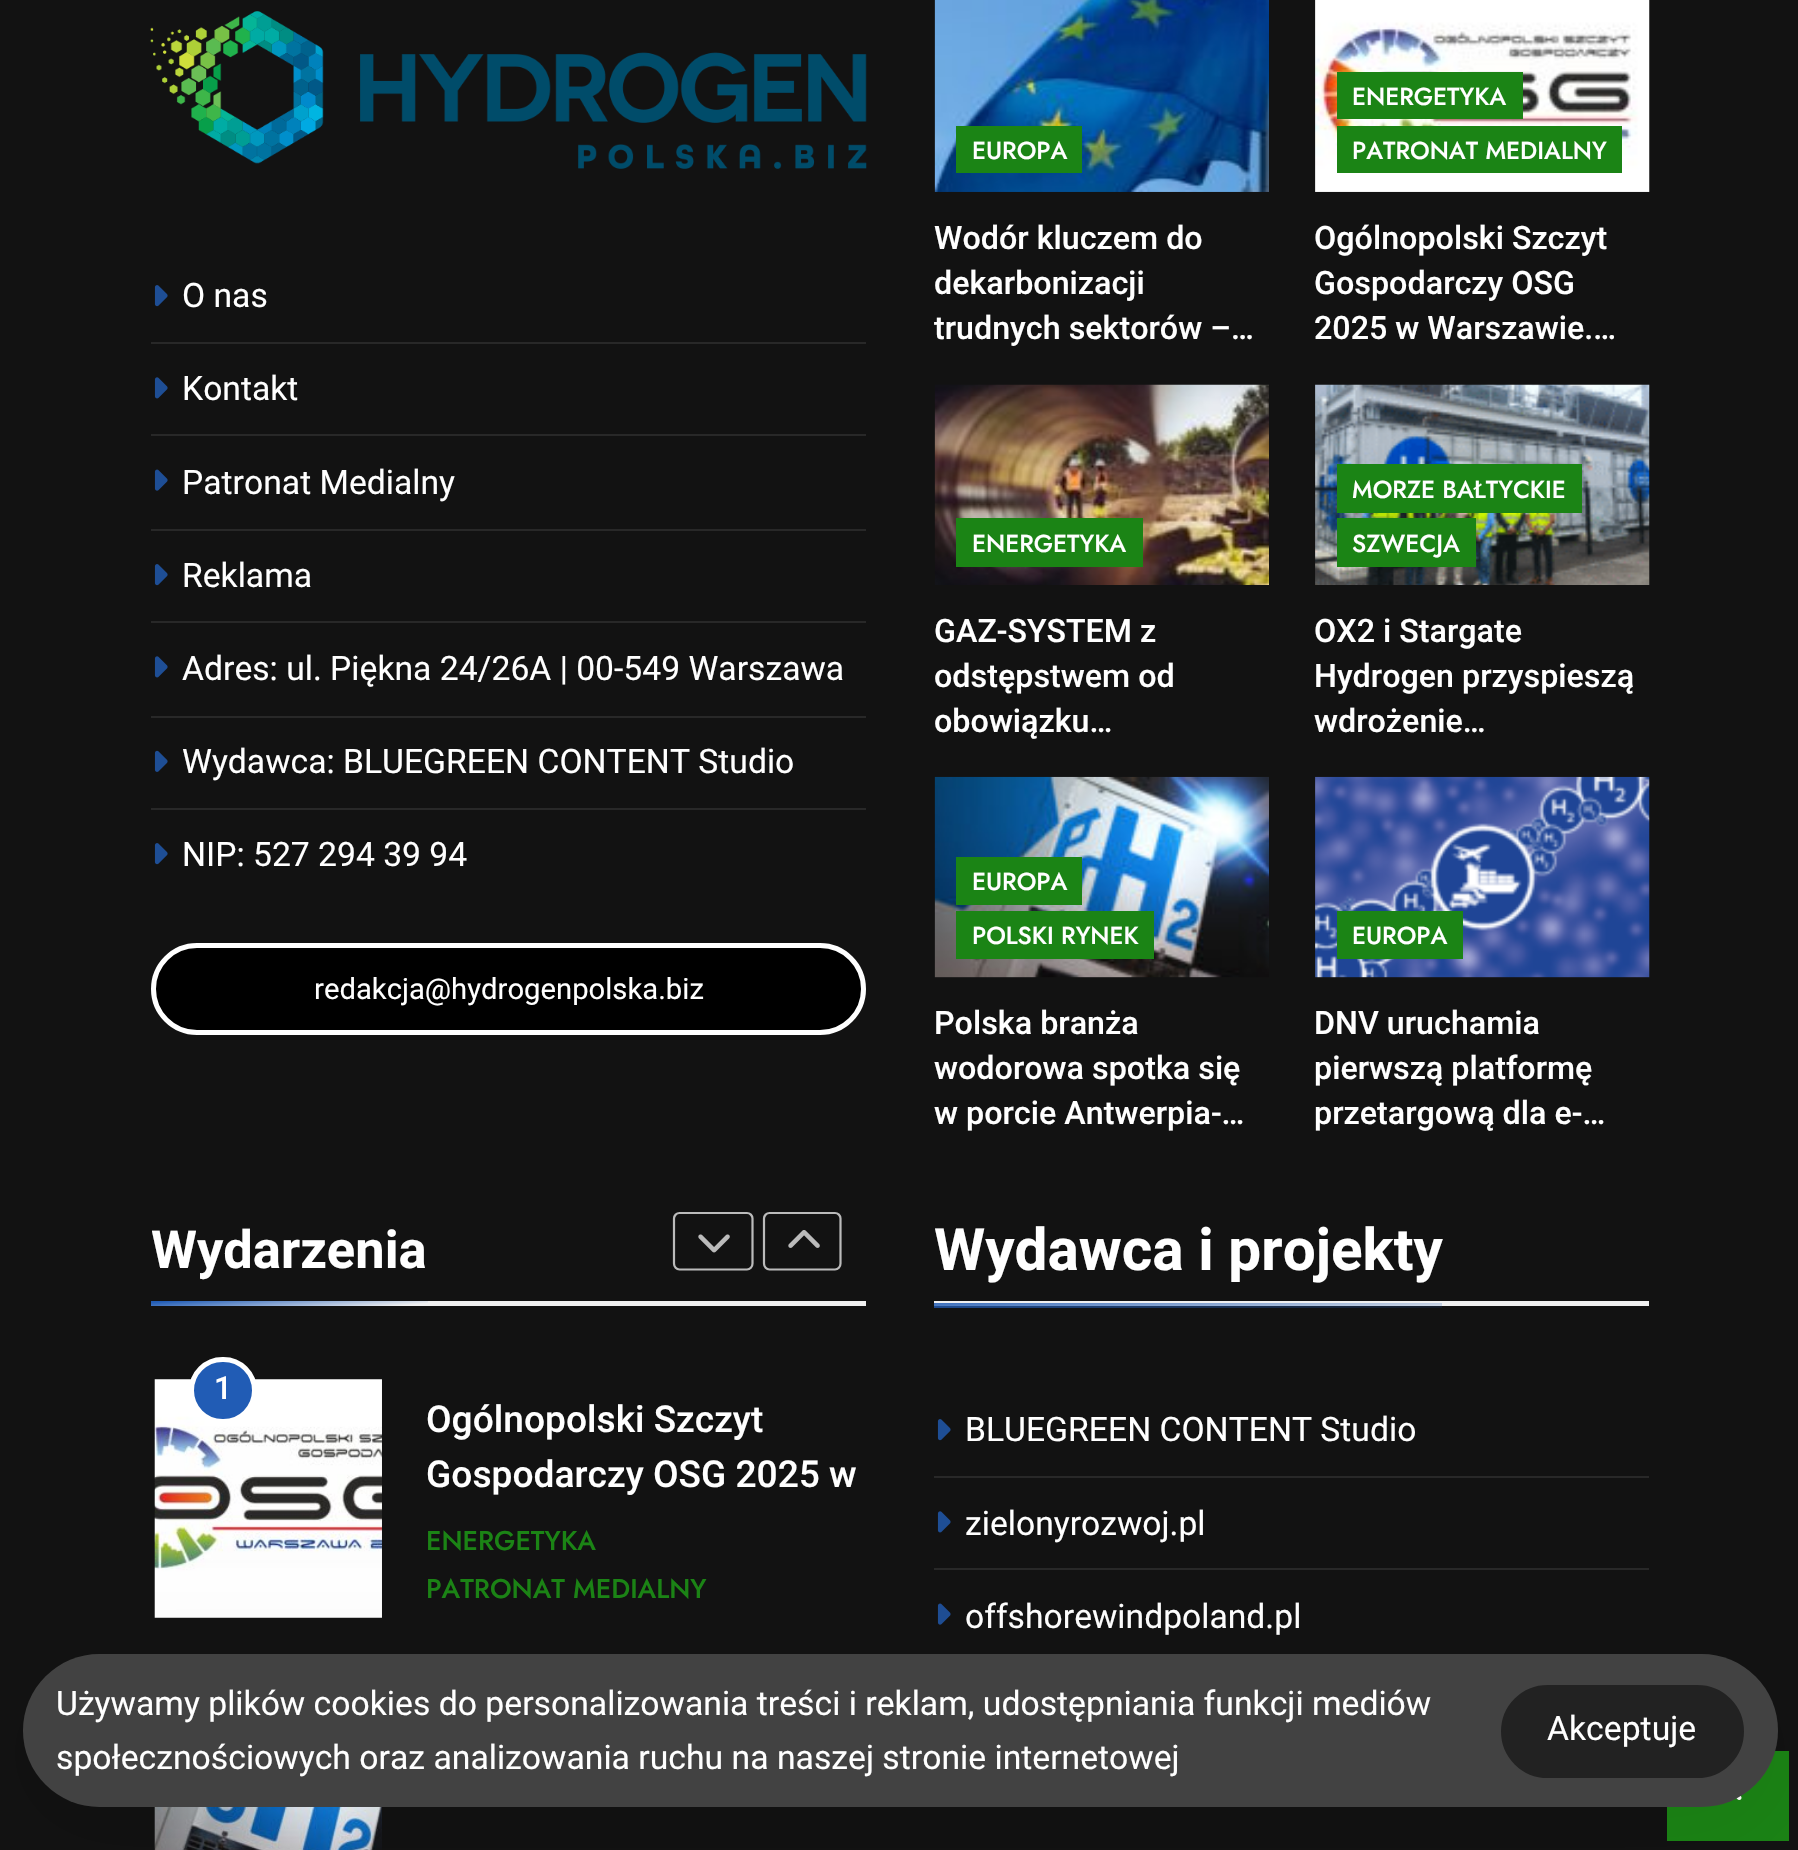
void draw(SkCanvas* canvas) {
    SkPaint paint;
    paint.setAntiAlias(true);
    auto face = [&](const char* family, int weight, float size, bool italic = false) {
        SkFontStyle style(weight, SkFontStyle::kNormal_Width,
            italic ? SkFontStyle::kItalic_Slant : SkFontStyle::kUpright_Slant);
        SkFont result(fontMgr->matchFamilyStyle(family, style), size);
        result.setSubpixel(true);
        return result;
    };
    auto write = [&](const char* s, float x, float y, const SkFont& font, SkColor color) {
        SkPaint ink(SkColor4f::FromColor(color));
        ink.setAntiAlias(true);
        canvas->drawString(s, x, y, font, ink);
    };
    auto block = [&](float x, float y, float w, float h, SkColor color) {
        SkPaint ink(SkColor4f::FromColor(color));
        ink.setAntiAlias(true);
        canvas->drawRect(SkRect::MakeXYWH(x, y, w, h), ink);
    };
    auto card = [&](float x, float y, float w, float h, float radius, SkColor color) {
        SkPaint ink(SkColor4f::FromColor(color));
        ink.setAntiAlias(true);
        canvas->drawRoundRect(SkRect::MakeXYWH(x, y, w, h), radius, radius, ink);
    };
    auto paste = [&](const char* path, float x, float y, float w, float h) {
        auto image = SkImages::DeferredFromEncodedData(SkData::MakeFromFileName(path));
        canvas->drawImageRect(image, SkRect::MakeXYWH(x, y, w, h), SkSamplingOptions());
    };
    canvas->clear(SkColorSetRGB(18, 18, 18));
    paste("pic1.png", 150, 11, 717, 158);
    block(151, 342, 715, 2, SkColorSetRGB(40, 40, 40));
    paste("pic2.png", 154, 285, 14, 22);
    auto kFont1 = face("Roboto", 400, 33.7f);
    write("O nas", 182, 307, kFont1, SK_ColorWHITE);
    block(151, 434, 715, 2, SkColorSetRGB(40, 40, 40));
    paste("pic3.png", 154, 377, 14, 22);
    write("Kontakt", 182, 400, kFont1, SK_ColorWHITE);
    block(151, 529, 715, 2, SkColorSetRGB(40, 40, 40));
    paste("pic4.png", 154, 469, 14, 22);
    write("Patronat Medialny", 182, 494, kFont1, SK_ColorWHITE);
    block(151, 621, 715, 2, SkColorSetRGB(40, 40, 40));
    paste("pic2.png", 154, 564, 14, 22);
    write("Reklama", 182, 587, kFont1, SK_ColorWHITE);
    block(151, 716, 715, 2, SkColorSetRGB(40, 40, 40));
    paste("pic3.png", 154, 656, 14, 22);
    write("Adres: ul. Piękna 24/26A | 00-549 Warszawa", 182, 680, kFont1, SK_ColorWHITE);
    block(151, 808, 715, 2, SkColorSetRGB(40, 40, 40));
    paste("pic5.png", 154, 750, 14, 22);
    write("Wydawca: BLUEGREEN CONTENT Studio", 182, 773, kFont1, SK_ColorWHITE);
    paste("pic2.png", 154, 843, 14, 22);
    write("NIP: 527 294 39 94", 182, 866, kFont1, SK_ColorWHITE);
    paint.setColor(SK_ColorBLACK);
    canvas->drawRoundRect(SkRect::MakeXYWH(153.5f, 945.5f, 710, 87), 43.5f, 43.5f, paint);
    paint.setStyle(SkPaint::kStroke_Style);
    paint.setStrokeWidth(5);
    paint.setColor(SK_ColorWHITE);
    canvas->drawRoundRect(SkRect::MakeXYWH(153.5f, 945.5f, 710, 87), 43.5f, 43.5f, paint);
    auto kFont2 = face("Roboto", 400, 29.25f);
    write("redakcja@hydrogenpolska.biz", 314, 999, kFont2, SK_ColorWHITE);
    paste("pic6.png", 934, 0, 335, 192);
    block(956, 126, 126, 47, SkColorSetRGB(27, 132, 21));
    auto kFont3 = face("Jost", 500, 24.5f);
    write("EUROPA", 972, 159, kFont3, SK_ColorWHITE);
    auto kFont4 = face("Roboto", 500, 32.25f);
    write("Wodór kluczem do", 934, 249, kFont4, SK_ColorWHITE);
    write("dekarbonizacji", 934, 294, kFont4, SK_ColorWHITE);
    canvas->save();
    canvas->clipRect(SkRect::MakeXYWH(934, 216, 335, 135));
    write("trudnych sektorów –…", 934, 339, kFont4, SK_ColorWHITE);
    canvas->restore();
    paste("pic7.png", 1315, 0, 335, 192);
    block(1337, 72, 186, 47, SkColorSetRGB(27, 132, 21));
    write("ENERGETYKA", 1352, 105, kFont3, SK_ColorWHITE);
    block(1337, 126, 285, 47, SkColorSetRGB(27, 132, 21));
    write("PATRONAT MEDIALNY", 1352, 159, kFont3, SK_ColorWHITE);
    write("Ogólnopolski Szczyt", 1314, 249, kFont4, SK_ColorWHITE);
    write("Gospodarczy OSG", 1314, 294, kFont4, SK_ColorWHITE);
    write("2025 w Warszawie.…", 1314, 339, kFont4, SK_ColorWHITE);
    paste("pic8.png", 934, 384, 335, 201);
    block(956, 518, 187, 49, SkColorSetRGB(27, 132, 21));
    write("ENERGETYKA", 972, 552, kFont3, SK_ColorWHITE);
    write("GAZ-SYSTEM z", 934, 642, kFont4, SK_ColorWHITE);
    write("odstępstwem od", 934, 687, kFont4, SK_ColorWHITE);
    write("obowiązku…", 934, 732, kFont4, SK_ColorWHITE);
    paste("pic9.png", 1315, 384, 335, 201);
    block(1337, 464, 245, 49, SkColorSetRGB(27, 132, 21));
    write("MORZE BAŁTYCKIE", 1352, 498, kFont3, SK_ColorWHITE);
    block(1337, 518, 139, 49, SkColorSetRGB(27, 132, 21));
    write("SZWECJA", 1352, 552, kFont3, SK_ColorWHITE);
    write("OX2 i Stargate", 1314, 642, kFont4, SK_ColorWHITE);
    write("Hydrogen przyspieszą", 1314, 687, kFont4, SK_ColorWHITE);
    write("wdrożenie…", 1314, 732, kFont4, SK_ColorWHITE);
    paste("pic10.png", 934, 776, 335, 202);
    block(956, 857, 126, 48, SkColorSetRGB(27, 132, 21));
    write("EUROPA", 972, 890, kFont3, SK_ColorWHITE);
    block(956, 911, 198, 48, SkColorSetRGB(27, 132, 21));
    write("POLSKI RYNEK", 972, 944, kFont3, SK_ColorWHITE);
    write("Polska branża", 934, 1034, kFont4, SK_ColorWHITE);
    write("wodorowa spotka się", 934, 1079, kFont4, SK_ColorWHITE);
    write("w porcie Antwerpia-…", 934, 1124, kFont4, SK_ColorWHITE);
    paste("pic11.png", 1315, 776, 335, 202);
    block(1337, 911, 126, 48, SkColorSetRGB(27, 132, 21));
    write("EUROPA", 1352, 944, kFont3, SK_ColorWHITE);
    write("DNV uruchamia", 1314, 1034, kFont4, SK_ColorWHITE);
    write("pierwszą platformę", 1314, 1079, kFont4, SK_ColorWHITE);
    write("przetargową dla e-…", 1314, 1124, kFont4, SK_ColorWHITE);
    block(428, 1301, 438, 5, SkColorSetRGB(240, 240, 240));
    auto kFont5 = face("Roboto", 700, 52.5f);
    write("Wydarzenia", 151, 1268, kFont5, SK_ColorWHITE);
    paint.setStyle(SkPaint::kFill_Style);
    {
        const SkColor colors[] = {SkColorSetRGB(33, 92, 181), SkColorSetRGB(240, 240, 240)};
        const float stops[] = {0, 1};
        const SkPoint ends[] = {{288, 1291}, {290, 1315}};
        paint.setShader(SkGradientShader::MakeLinear(ends, colors, stops, 2, SkTileMode::kClamp));
        paint.setAlpha(255);
    }
    canvas->drawRect(SkRect::MakeXYWH(151, 1301, 277, 5), paint);
    paint.setStyle(SkPaint::kStroke_Style);
    paint.setStrokeWidth(2.2f);
    paint.setShader(nullptr);
    paint.setColor(SkColorSetRGB(187, 187, 187));
    canvas->drawPath(SkPathBuilder().moveTo(674, 1263.5f).lineTo(674, 1218.5f).cubicTo(674, 1215.5f, 676.5f, 1213, 679.5f, 1213).lineTo(747, 1213).cubicTo(750, 1213, 752.5f, 1215.5f, 752.5f, 1218.5f).lineTo(752.5f, 1263.5f).cubicTo(752.5f, 1267, 750, 1269.5f, 747, 1269.5f).lineTo(679.5f, 1269.5f).cubicTo(676.5f, 1269.5f, 674, 1267, 674, 1263.5f).close().detach(), paint);
    paste("pic12.png", 698, 1234, 32, 19);
    canvas->drawPath(SkPathBuilder().moveTo(764, 1263.5f).lineTo(764, 1218.5f).cubicTo(764, 1215.5f, 766.5f, 1213, 769.5f, 1213).lineTo(835, 1213).cubicTo(838, 1213, 840.5f, 1215.5f, 840.5f, 1218.5f).lineTo(840.5f, 1263.5f).cubicTo(840.5f, 1267, 838, 1269.5f, 835, 1269.5f).lineTo(769.5f, 1269.5f).cubicTo(766.5f, 1269.5f, 764, 1267, 764, 1263.5f).close().detach(), paint);
    paste("pic13.png", 788, 1230, 32, 18);
    paste("pic14.png", 154, 1379, 228, 239);
    paint.setStyle(SkPaint::kFill_Style);
    paint.setColor(SkColorSetRGB(33, 92, 181));
    canvas->drawRoundRect(SkRect::MakeXYWH(191.5f, 1359.5f, 63, 62), 31, 31, paint);
    paint.setStyle(SkPaint::kStroke_Style);
    paint.setStrokeWidth(5);
    paint.setColor(SK_ColorWHITE);
    canvas->drawRoundRect(SkRect::MakeXYWH(191.5f, 1359.5f, 63, 62), 31, 31, paint);
    auto kFont6 = face("Roboto", 500, 32);
    write("1", 214, 1399, kFont6, SK_ColorWHITE);
    auto kFont7 = face("Roboto", 500, 37.1f);
    write("Ogólnopolski Szczyt", 426, 1432, kFont7, SK_ColorWHITE);
    write("Gospodarczy OSG 2025 w", 426, 1487, kFont7, SK_ColorWHITE);
    auto kFont8 = face("Jost", 500, 27);
    write("ENERGETYKA", 426, 1550, kFont8, SkColorSetRGB(27, 132, 21));
    write("PATRONAT MEDIALNY", 426, 1598, kFont8, SkColorSetRGB(27, 132, 21));
    paste("pic15.png", 154, 1807, 228, 43);
    block(934, 1301, 715, 5, SkColorSetRGB(240, 240, 240));
    auto kFont9 = face("Roboto", 700, 58.5f);
    write("Wydawca i projekty", 934, 1270, kFont9, SK_ColorWHITE);
    paint.setStyle(SkPaint::kFill_Style);
    {
        const SkColor colors[] = {SkColorSetRGB(33, 92, 181), SkColorSetARGB(0, 33, 92, 181)};
        const float stops[] = {0, 1};
        const SkPoint ends[] = {{1187, 1285}, {1189, 1325}};
        paint.setShader(SkGradientShader::MakeLinear(ends, colors, stops, 2, SkTileMode::kClamp));
        paint.setAlpha(255);
    }
    canvas->drawRect(SkRect::MakeXYWH(934, 1303, 508, 5), paint);
    block(934, 1476, 715, 2, SkColorSetRGB(40, 40, 40));
    paste("pic2.png", 937, 1419, 14, 22);
    write("BLUEGREEN CONTENT Studio", 965, 1441, kFont1, SK_ColorWHITE);
    block(934, 1568, 715, 2, SkColorSetRGB(40, 40, 40));
    paste("pic3.png", 937, 1511, 14, 22);
    write("zielonyrozwoj.pl", 965, 1535, kFont1, SK_ColorWHITE);
    paste("pic4.png", 937, 1603, 14, 22);
    write("offshorewindpoland.pl", 965, 1628, kFont1, SK_ColorWHITE);
    block(1667, 1751, 122, 90, SkColorSetRGB(27, 132, 21));
    paste("pic16.png", 1736, 1796, 6, 4);
    paint.setShader(nullptr);
    paint.setColor(SkColorSetARGB(13, 0, 0, 0));
    paint.setMaskFilter(SkMaskFilter::MakeBlur(kNormal_SkBlurStyle, 45));
    canvas->drawRoundRect(SkRect::MakeXYWH(0, 1654, 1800, 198), 99, 99, paint);
    paint.setMaskFilter(nullptr);
    card(23, 1654, 1755, 153, 76.5f, SkColorSetRGB(66, 66, 66));
    auto kFont10 = face("Roboto", 400, 33.75f);
    write("Używamy plików cookies do personalizowania treści i reklam, udostępniania funkcji mediów", 56, 1715, kFont10, SK_ColorWHITE);
    write("społecznościowych oraz analizowania ruchu na naszej stronie internetowej", 56, 1769, kFont10, SK_ColorWHITE);
    paint.setColor(SkColorSetRGB(34, 34, 34));
    canvas->drawRoundRect(SkRect::MakeXYWH(1502, 1686, 241, 91), 45.5f, 45.5f, paint);
    paint.setStyle(SkPaint::kStroke_Style);
    paint.setStrokeWidth(2);
    canvas->drawRoundRect(SkRect::MakeXYWH(1502, 1686, 241, 91), 45.5f, 45.5f, paint);
    write("Akceptuje", 1547, 1740, kFont10, SK_ColorWHITE);
}
